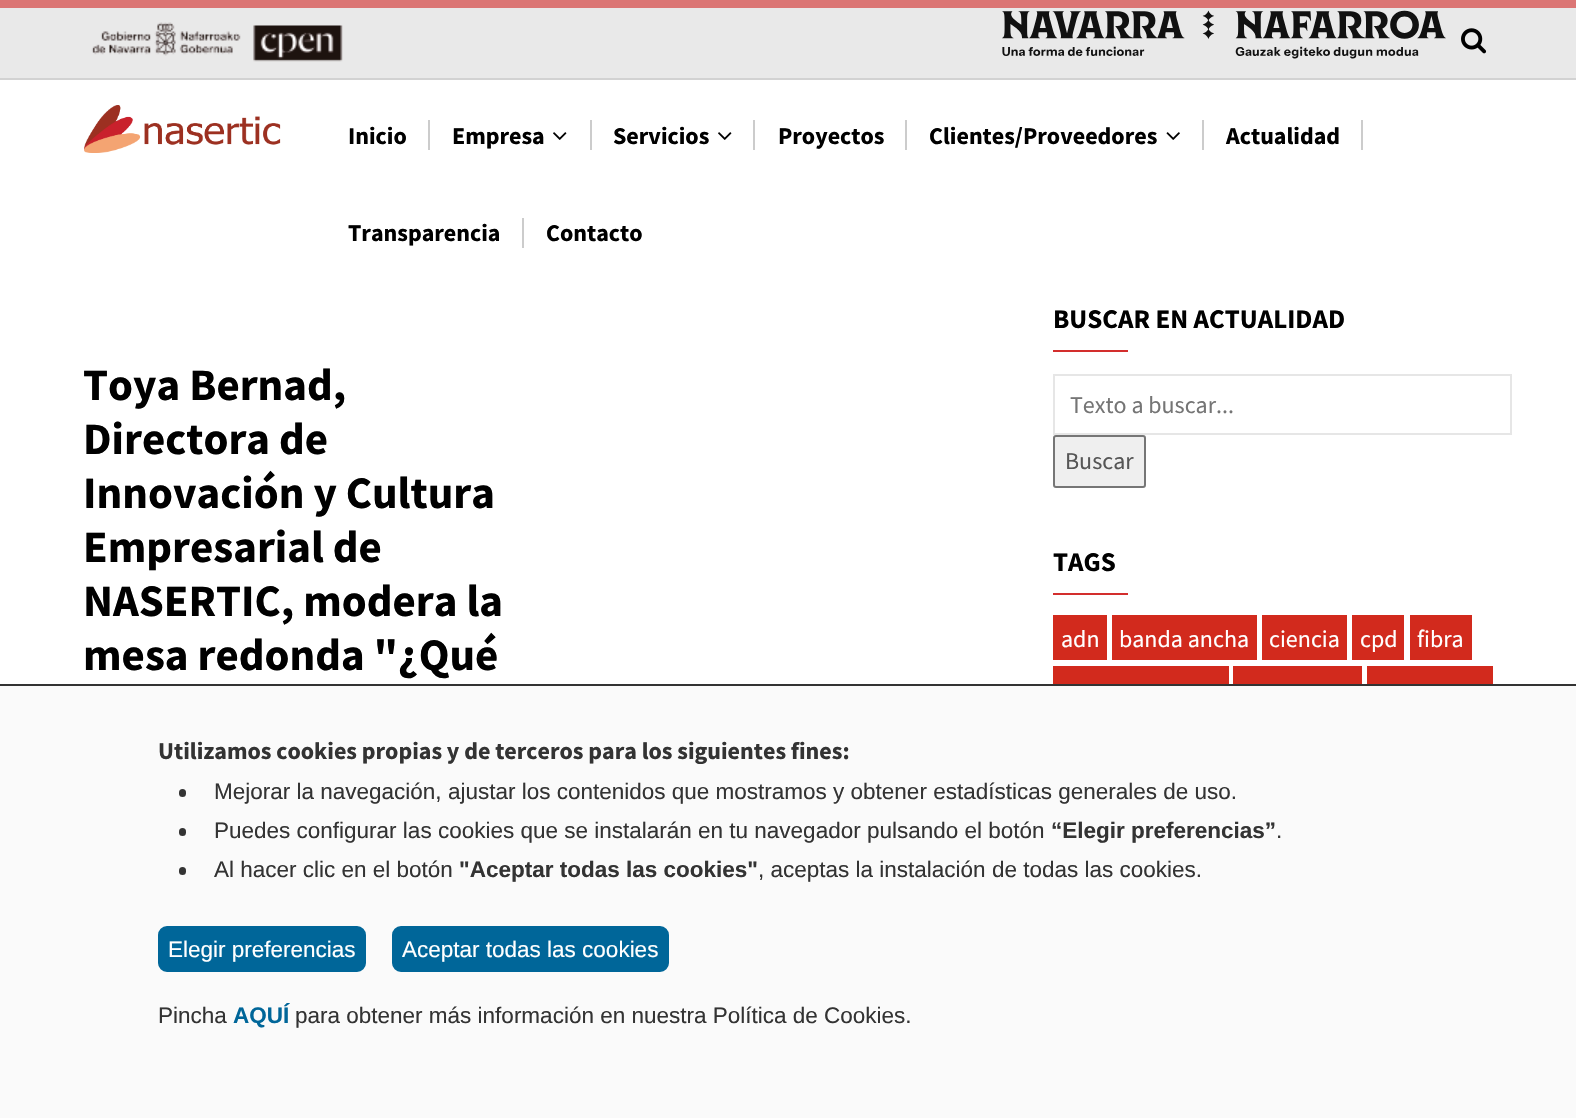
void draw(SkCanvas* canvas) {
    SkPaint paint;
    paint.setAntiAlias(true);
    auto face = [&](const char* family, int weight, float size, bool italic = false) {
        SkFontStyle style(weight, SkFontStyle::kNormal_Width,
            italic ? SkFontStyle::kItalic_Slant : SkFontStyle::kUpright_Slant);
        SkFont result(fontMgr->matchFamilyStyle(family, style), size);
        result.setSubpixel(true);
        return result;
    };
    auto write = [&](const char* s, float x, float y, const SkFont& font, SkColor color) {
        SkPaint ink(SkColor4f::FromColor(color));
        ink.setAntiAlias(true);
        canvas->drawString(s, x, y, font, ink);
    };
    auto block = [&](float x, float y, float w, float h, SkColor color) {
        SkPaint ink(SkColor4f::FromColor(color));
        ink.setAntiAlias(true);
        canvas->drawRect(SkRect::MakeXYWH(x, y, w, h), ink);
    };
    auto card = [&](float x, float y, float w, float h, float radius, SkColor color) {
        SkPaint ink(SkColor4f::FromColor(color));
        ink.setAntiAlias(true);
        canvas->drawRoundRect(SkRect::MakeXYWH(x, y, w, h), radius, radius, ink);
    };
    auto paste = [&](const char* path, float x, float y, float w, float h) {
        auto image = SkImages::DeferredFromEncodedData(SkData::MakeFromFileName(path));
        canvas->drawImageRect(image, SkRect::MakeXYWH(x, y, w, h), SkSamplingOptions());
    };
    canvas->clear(SK_ColorWHITE);
    block(0, 0, 1576, 8, SkColorSetRGB(219, 117, 116));
    block(0, 8, 1576, 70, SkColorSetRGB(233, 233, 233));
    block(0, 78, 1576, 2, SkColorSetRGB(210, 210, 210));
    paste("pic1.png", 91, 22, 252, 40);
    paste("pic2.png", 1002, 10, 444, 49);
    paste("pic3.png", 1461, 28, 26, 26);
    paste("pic4.png", 84, 105, 197, 48);
    auto kFont1 = face("Source Sans Pro", 700, 24);
    write("Inicio", 348, 144, kFont1, SK_ColorBLACK);
    block(428, 120, 2, 30, SkColorSetRGB(204, 204, 204));
    write("Empresa", 452, 144, kFont1, SK_ColorBLACK);
    paste("pic5.png", 553, 132, 14, 8);
    block(590, 120, 2, 30, SkColorSetRGB(204, 204, 204));
    write("Servicios", 613, 144, kFont1, SK_ColorBLACK);
    paste("pic5.png", 718, 132, 14, 8);
    block(753, 120, 2, 30, SkColorSetRGB(204, 204, 204));
    write("Proyectos", 778, 144, kFont1, SK_ColorBLACK);
    block(905, 120, 2, 30, SkColorSetRGB(204, 204, 204));
    write("Clientes/Proveedores", 929, 144, kFont1, SK_ColorBLACK);
    paste("pic6.png", 1166, 132, 14, 8);
    block(1202, 120, 2, 30, SkColorSetRGB(204, 204, 204));
    write("Actualidad", 1226, 144, kFont1, SK_ColorBLACK);
    block(1361, 120, 2, 30, SkColorSetRGB(204, 204, 204));
    write("Transparencia", 348, 241, kFont1, SK_ColorBLACK);
    block(522, 218, 2, 30, SkColorSetRGB(204, 204, 204));
    write("Contacto", 546, 241, kFont1, SK_ColorBLACK);
    auto kFont2 = face("Source Sans Pro", 700, 45);
    write("Toya Bernad,", 83, 400, kFont2, SK_ColorBLACK);
    write("Directora de", 83, 454, kFont2, SK_ColorBLACK);
    write("Innovación y Cultura", 83, 508, kFont2, SK_ColorBLACK);
    write("Empresarial de", 83, 562, kFont2, SK_ColorBLACK);
    write("NASERTIC, modera la", 83, 616, kFont2, SK_ColorBLACK);
    write("mesa redonda \"¿Qué", 83, 670, kFont2, SK_ColorBLACK);
    auto kFont3 = face("Source Sans Pro", 700, 27);
    write("BUSCAR EN ACTUALIDAD", 1053, 328, kFont3, SK_ColorBLACK);
    block(1053, 350, 75, 2, SkColorSetRGB(211, 46, 45));
    paint.setStyle(SkPaint::kStroke_Style);
    paint.setStrokeWidth(2);
    paint.setColor(SkColorSetRGB(230, 230, 230));
    canvas->drawRect(SkRect::MakeXYWH(1054, 375, 457, 59), paint);
    auto kFont4 = face("Source Sans Pro", 400, 24);
    write("Texto a buscar...", 1070, 413, kFont4, SkColorSetRGB(117, 117, 117));
    paint.setStyle(SkPaint::kFill_Style);
    paint.setColor(SkColorSetRGB(239, 239, 239));
    canvas->drawRoundRect(SkRect::MakeXYWH(1054, 436, 91, 51), 2, 2, paint);
    paint.setStyle(SkPaint::kStroke_Style);
    paint.setColor(SkColorSetRGB(118, 118, 118));
    canvas->drawRoundRect(SkRect::MakeXYWH(1054, 436, 91, 51), 2, 2, paint);
    write("Buscar", 1065, 469, kFont4, SkColorSetRGB(86, 86, 86));
    write("TAGS", 1053, 571, kFont3, SK_ColorBLACK);
    block(1053, 593, 75, 2, SkColorSetRGB(211, 46, 45));
    block(1053, 615, 54, 45, SkColorSetRGB(210, 42, 29));
    write("adn", 1061, 647, kFont4, SK_ColorWHITE);
    block(1112, 615, 145, 45, SkColorSetRGB(210, 42, 29));
    write("banda ancha", 1119, 647, kFont4, SK_ColorWHITE);
    block(1262, 615, 85, 45, SkColorSetRGB(210, 42, 29));
    write("ciencia", 1269, 647, kFont4, SK_ColorWHITE);
    block(1352, 615, 52, 45, SkColorSetRGB(210, 42, 29));
    write("cpd", 1360, 647, kFont4, SK_ColorWHITE);
    block(1410, 615, 62, 45, SkColorSetRGB(210, 42, 29));
    write("fibra", 1417, 647, kFont4, SK_ColorWHITE);
    block(1053, 666, 176, 18, SkColorSetRGB(210, 42, 29));
    block(1233, 666, 129, 18, SkColorSetRGB(210, 42, 29));
    block(1367, 666, 126, 18, SkColorSetRGB(210, 42, 29));
    block(0, 686, 1576, 432, SkColorSetRGB(250, 250, 250));
    block(0, 684, 1576, 2, SkColorSetRGB(51, 51, 51));
    write("Utilizamos cookies propias y de terceros para los siguientes fines:", 158, 759, kFont1, SkColorSetRGB(51, 51, 51));
    card(179, 789, 7, 8, 3.5f, SkColorSetRGB(51, 51, 51));
    auto kFont5 = face("Liberation Sans", 400, 22.5f);
    write("Mejorar la navegación, ajustar los contenidos que mostramos y obtener estadísticas generales de uso.", 214, 799, kFont5, SkColorSetRGB(51, 51, 51));
    card(179, 828, 7, 8, 3.5f, SkColorSetRGB(51, 51, 51));
    write("Puedes configurar las cookies que se instalarán en tu navegador pulsando el botón", 214, 838, kFont5, SkColorSetRGB(51, 51, 51));
    auto kFont6 = face("Liberation Sans", 700, 22.5f);
    write("“Elegir preferencias”", 1051, 838, kFont6, SkColorSetRGB(51, 51, 51));
    write(".", 1276, 838, kFont5, SkColorSetRGB(51, 51, 51));
    card(179, 867, 7, 8, 3.5f, SkColorSetRGB(51, 51, 51));
    write("Al hacer clic en el botón", 214, 877, kFont5, SkColorSetRGB(51, 51, 51));
    write("\"Aceptar todas las cookies\"", 459, 877, kFont6, SkColorSetRGB(51, 51, 51));
    write(", aceptas la instalación de todas las cookies.", 758, 877, kFont5, SkColorSetRGB(51, 51, 51));
    paint.setStyle(SkPaint::kFill_Style);
    paint.setColor(SkColorSetRGB(0, 102, 153));
    canvas->drawRoundRect(SkRect::MakeXYWH(159, 927, 206, 44), 8, 8, paint);
    paint.setStyle(SkPaint::kStroke_Style);
    canvas->drawRoundRect(SkRect::MakeXYWH(159, 927, 206, 44), 8, 8, paint);
    write("Elegir preferencias", 168, 957, kFont5, SK_ColorWHITE);
    paint.setStyle(SkPaint::kFill_Style);
    canvas->drawRoundRect(SkRect::MakeXYWH(393, 927, 275, 44), 8, 8, paint);
    paint.setStyle(SkPaint::kStroke_Style);
    canvas->drawRoundRect(SkRect::MakeXYWH(393, 927, 275, 44), 8, 8, paint);
    write("Aceptar todas las cookies", 402, 957, kFont5, SK_ColorWHITE);
    write("Pincha", 158, 1023, kFont5, SkColorSetRGB(51, 51, 51));
    write("AQUÍ", 233, 1023, kFont6, SkColorSetRGB(0, 102, 153));
    write("para obtener más información en nuestra Política de Cookies.", 295, 1023, kFont5, SkColorSetRGB(51, 51, 51));
}
